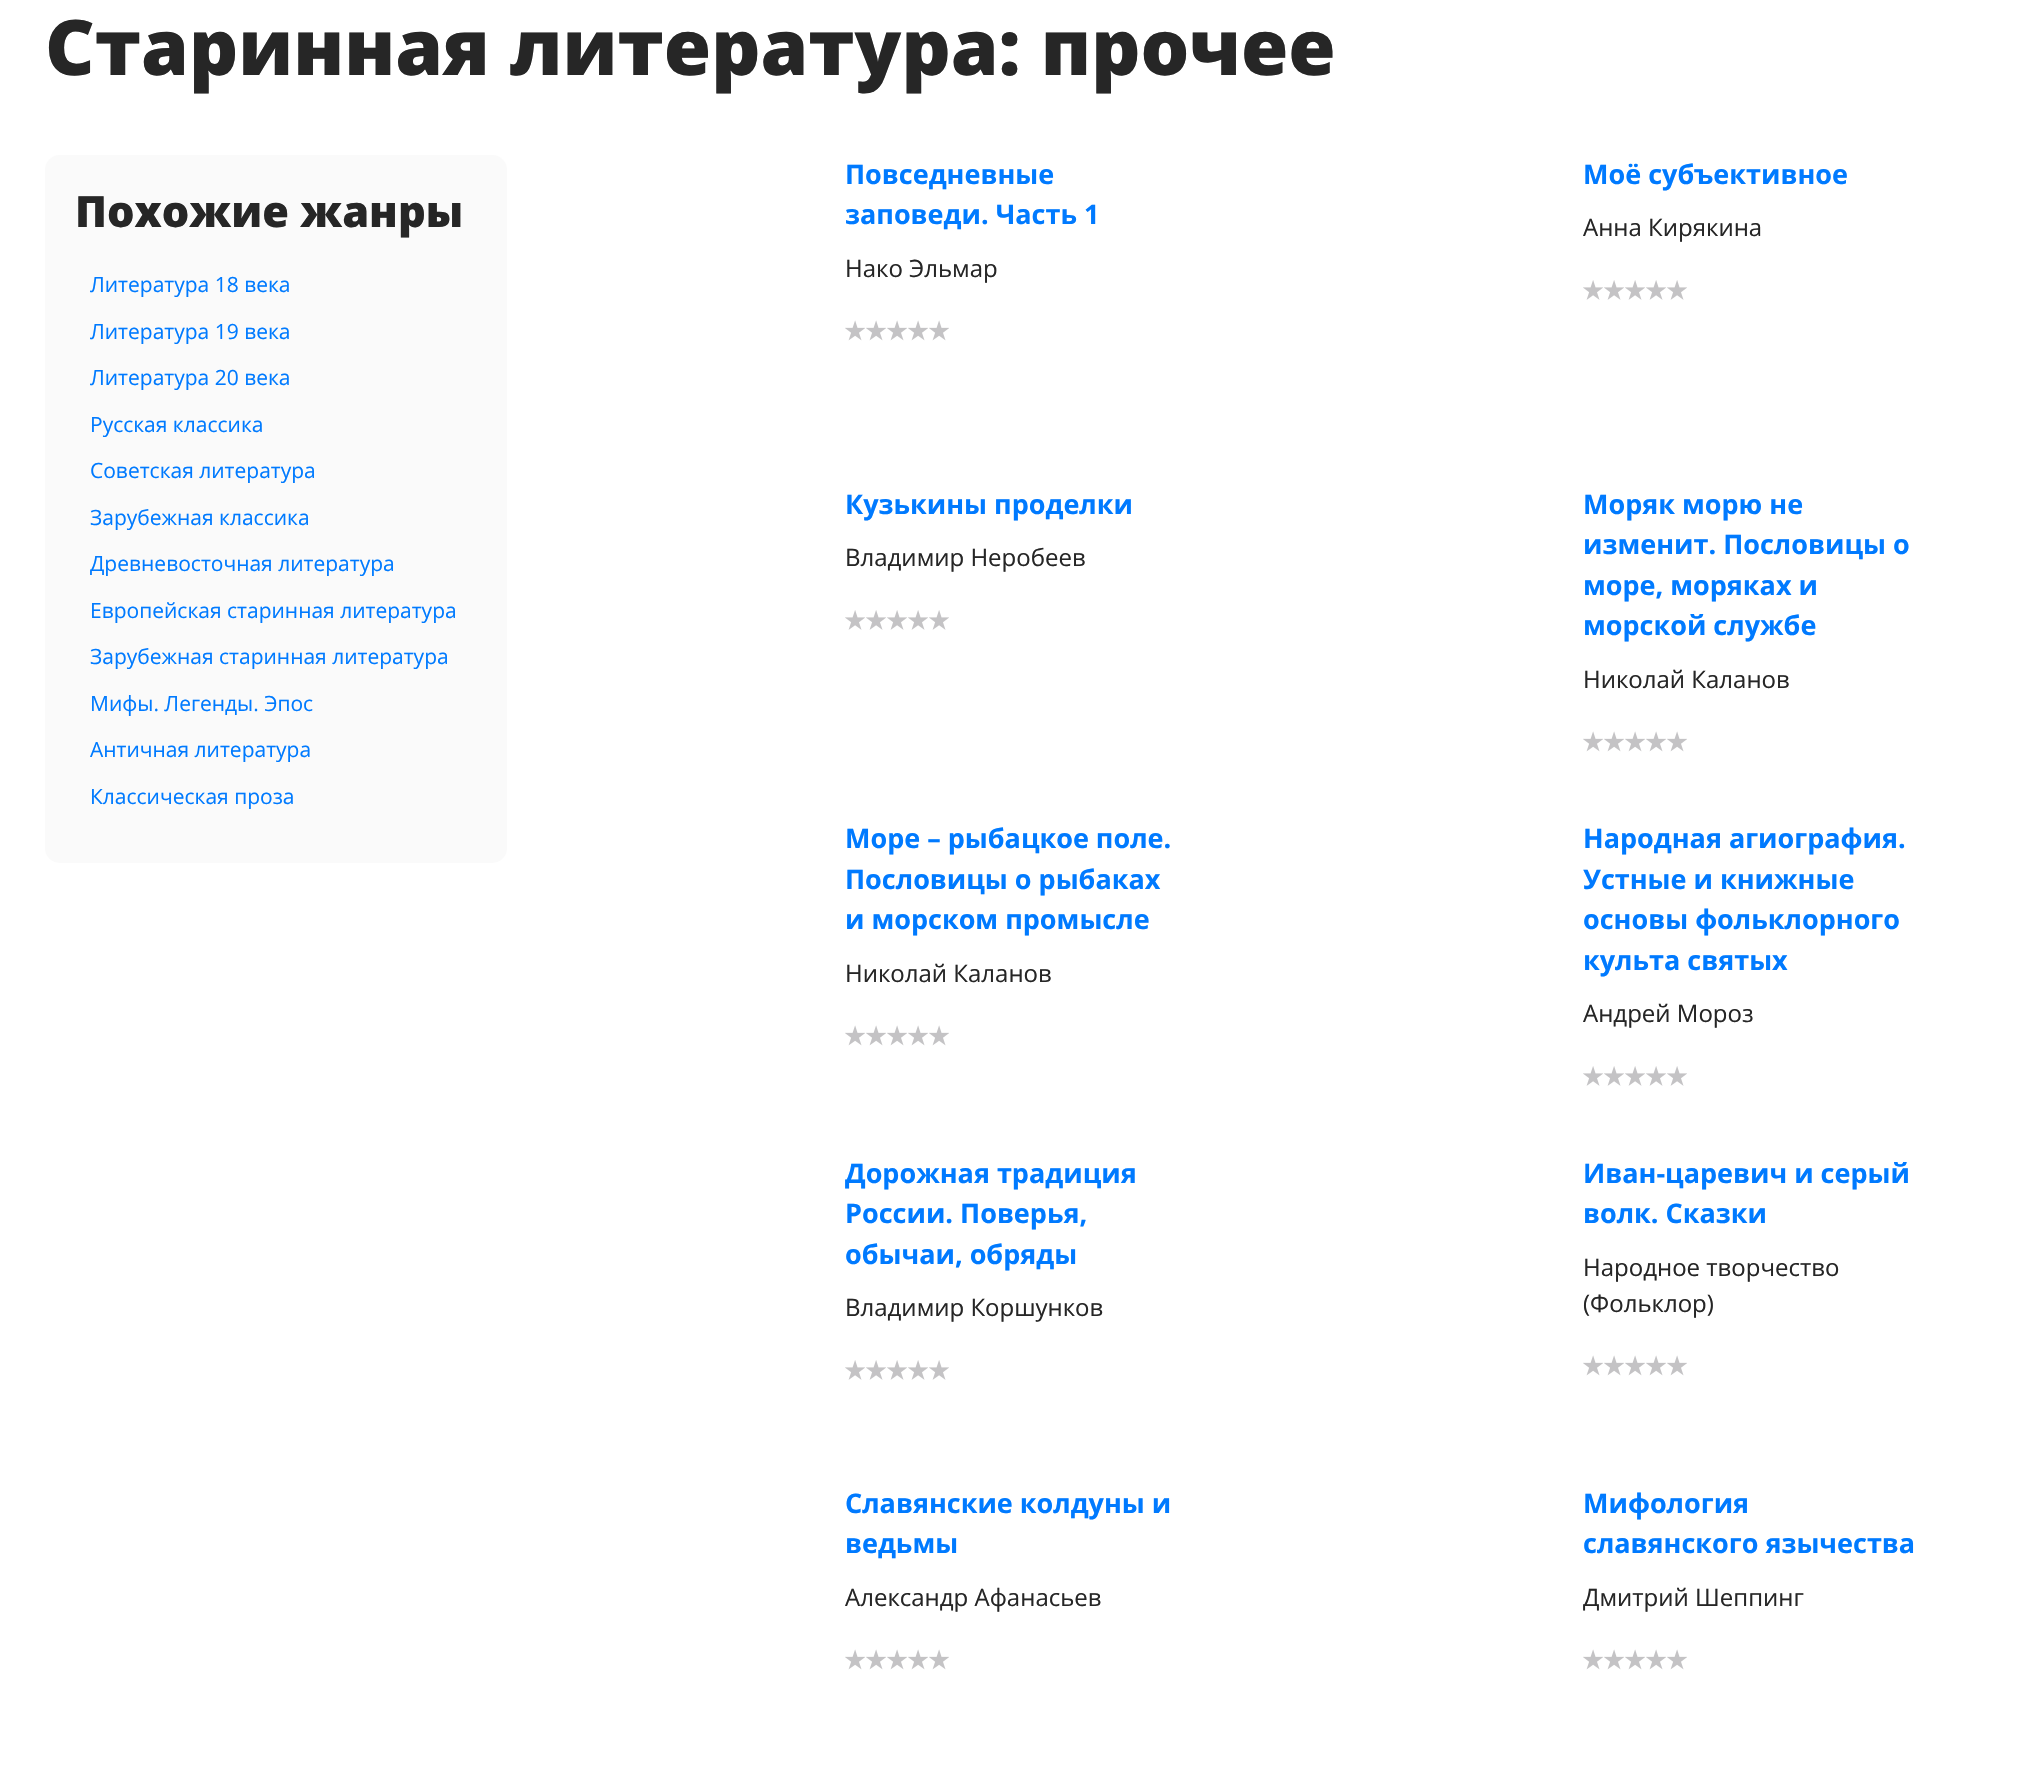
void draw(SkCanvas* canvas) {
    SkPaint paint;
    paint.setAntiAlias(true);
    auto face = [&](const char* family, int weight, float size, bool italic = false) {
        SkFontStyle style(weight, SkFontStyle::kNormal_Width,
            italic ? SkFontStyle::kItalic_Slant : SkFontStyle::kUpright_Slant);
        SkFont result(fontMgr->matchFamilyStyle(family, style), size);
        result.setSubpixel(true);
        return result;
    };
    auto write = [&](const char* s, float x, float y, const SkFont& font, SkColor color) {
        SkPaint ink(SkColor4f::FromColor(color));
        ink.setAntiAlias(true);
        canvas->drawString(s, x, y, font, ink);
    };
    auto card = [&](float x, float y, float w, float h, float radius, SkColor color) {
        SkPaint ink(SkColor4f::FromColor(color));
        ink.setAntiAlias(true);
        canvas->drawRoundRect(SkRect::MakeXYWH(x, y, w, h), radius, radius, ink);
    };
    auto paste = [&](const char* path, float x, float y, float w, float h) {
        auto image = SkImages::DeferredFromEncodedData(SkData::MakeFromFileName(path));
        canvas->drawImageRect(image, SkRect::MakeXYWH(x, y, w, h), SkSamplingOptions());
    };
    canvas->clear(SK_ColorWHITE);
    auto kFont1 = face("Open Sans", 800, 76.75f);
    write("Старинная литература: прочее", 45, 75, kFont1, SkColorSetRGB(38, 38, 38));
    card(45, 155, 462, 708, 15, SkColorSetRGB(250, 250, 250));
    auto kFont2 = face("Open Sans", 800, 43.25f);
    write("Похожие жанры", 75, 227, kFont2, SkColorSetRGB(38, 38, 38));
    auto kFont3 = face("Open Sans", 400, 21);
    write("Литература 18 века", 90, 292, kFont3, SkColorSetRGB(0, 122, 255));
    write("Литература 19 века", 90, 339, kFont3, SkColorSetRGB(0, 122, 255));
    write("Литература 20 века", 90, 385, kFont3, SkColorSetRGB(0, 122, 255));
    write("Русская классика", 90, 432, kFont3, SkColorSetRGB(0, 122, 255));
    write("Советская литература", 90, 478, kFont3, SkColorSetRGB(0, 122, 255));
    write("Зарубежная классика", 90, 525, kFont3, SkColorSetRGB(0, 122, 255));
    write("Древневосточная литература", 90, 571, kFont3, SkColorSetRGB(0, 122, 255));
    write("Европейская старинная литература", 90, 618, kFont3, SkColorSetRGB(0, 122, 255));
    write("Зарубежная старинная литература", 90, 664, kFont3, SkColorSetRGB(0, 122, 255));
    write("Мифы. Легенды. Эпос", 90, 711, kFont3, SkColorSetRGB(0, 122, 255));
    write("Античная литература", 90, 757, kFont3, SkColorSetRGB(0, 122, 255));
    write("Классическая проза", 90, 804, kFont3, SkColorSetRGB(0, 122, 255));
    auto kFont4 = face("Open Sans", 700, 27);
    write("Повседневные", 845, 184, kFont4, SkColorSetRGB(0, 122, 255));
    write("заповеди. Часть 1", 845, 224, kFont4, SkColorSetRGB(0, 122, 255));
    auto kFont5 = face("Open Sans", 400, 24);
    write("Нако Эльмар", 845, 277, kFont5, SkColorSetRGB(38, 38, 38));
    paste("pic1.png", 845, 320, 20, 21);
    paste("pic1.png", 866, 320, 20, 21);
    paste("pic1.png", 887, 320, 20, 21);
    paste("pic1.png", 908, 320, 20, 21);
    paste("pic1.png", 929, 320, 20, 21);
    write("Моё субъективное", 1583, 184, kFont4, SkColorSetRGB(0, 122, 255));
    write("Анна Кирякина", 1583, 236, kFont5, SkColorSetRGB(38, 38, 38));
    paste("pic2.png", 1583, 280, 20, 20);
    paste("pic2.png", 1604, 280, 20, 20);
    paste("pic2.png", 1625, 280, 20, 20);
    paste("pic2.png", 1646, 280, 20, 20);
    paste("pic2.png", 1667, 280, 20, 20);
    write("Кузькины проделки", 845, 514, kFont4, SkColorSetRGB(0, 122, 255));
    write("Владимир Неробеев", 845, 566, kFont5, SkColorSetRGB(38, 38, 38));
    paste("pic2.png", 845, 610, 20, 20);
    paste("pic2.png", 866, 610, 20, 20);
    paste("pic2.png", 887, 610, 20, 20);
    paste("pic2.png", 908, 610, 20, 20);
    paste("pic2.png", 929, 610, 20, 20);
    write("Моряк морю не", 1583, 514, kFont4, SkColorSetRGB(0, 122, 255));
    write("изменит. Пословицы о", 1583, 554, kFont4, SkColorSetRGB(0, 122, 255));
    write("море, моряках и", 1583, 595, kFont4, SkColorSetRGB(0, 122, 255));
    write("морской службе", 1583, 635, kFont4, SkColorSetRGB(0, 122, 255));
    write("Николай Каланов", 1583, 688, kFont5, SkColorSetRGB(38, 38, 38));
    paste("pic1.png", 1583, 731, 20, 21);
    paste("pic1.png", 1604, 731, 20, 21);
    paste("pic1.png", 1625, 731, 20, 21);
    paste("pic1.png", 1646, 731, 20, 21);
    paste("pic1.png", 1667, 731, 20, 21);
    write("Море – рыбацкое поле.", 845, 848, kFont4, SkColorSetRGB(0, 122, 255));
    write("Пословицы о рыбаках", 845, 889, kFont4, SkColorSetRGB(0, 122, 255));
    write("и морском промысле", 845, 929, kFont4, SkColorSetRGB(0, 122, 255));
    write("Николай Каланов", 845, 982, kFont5, SkColorSetRGB(38, 38, 38));
    paste("pic1.png", 845, 1025, 20, 21);
    paste("pic1.png", 866, 1025, 20, 21);
    paste("pic1.png", 887, 1025, 20, 21);
    paste("pic1.png", 908, 1025, 20, 21);
    paste("pic1.png", 929, 1025, 20, 21);
    write("Народная агиография.", 1583, 848, kFont4, SkColorSetRGB(0, 122, 255));
    write("Устные и книжные", 1583, 889, kFont4, SkColorSetRGB(0, 122, 255));
    write("основы фольклорного", 1583, 929, kFont4, SkColorSetRGB(0, 122, 255));
    write("культа святых", 1583, 970, kFont4, SkColorSetRGB(0, 122, 255));
    write("Андрей Мороз", 1583, 1022, kFont5, SkColorSetRGB(38, 38, 38));
    paste("pic2.png", 1583, 1066, 20, 20);
    paste("pic2.png", 1604, 1066, 20, 20);
    paste("pic2.png", 1625, 1066, 20, 20);
    paste("pic2.png", 1646, 1066, 20, 20);
    paste("pic2.png", 1667, 1066, 20, 20);
    canvas->save();
    canvas->clipRect(SkRect::MakeXYWH(845, 1154, 339, 121));
    write("Дорожная традиция", 845, 1183, kFont4, SkColorSetRGB(0, 122, 255));
    canvas->restore();
    write("России. Поверья,", 845, 1223, kFont4, SkColorSetRGB(0, 122, 255));
    write("обычаи, обряды", 845, 1264, kFont4, SkColorSetRGB(0, 122, 255));
    write("Владимир Коршунков", 845, 1316, kFont5, SkColorSetRGB(38, 38, 38));
    paste("pic2.png", 845, 1360, 20, 20);
    paste("pic2.png", 866, 1360, 20, 20);
    paste("pic2.png", 887, 1360, 20, 20);
    paste("pic2.png", 908, 1360, 20, 20);
    paste("pic2.png", 929, 1360, 20, 20);
    write("Иван-царевич и серый", 1583, 1183, kFont4, SkColorSetRGB(0, 122, 255));
    write("волк. Сказки", 1583, 1223, kFont4, SkColorSetRGB(0, 122, 255));
    write("Народное творчество", 1583, 1276, kFont5, SkColorSetRGB(38, 38, 38));
    write("(Фольклор)", 1583, 1312, kFont5, SkColorSetRGB(38, 38, 38));
    paste("pic1.png", 1583, 1355, 20, 21);
    paste("pic1.png", 1604, 1355, 20, 21);
    paste("pic1.png", 1625, 1355, 20, 21);
    paste("pic1.png", 1646, 1355, 20, 21);
    paste("pic1.png", 1667, 1355, 20, 21);
    write("Славянские колдуны и", 845, 1513, kFont4, SkColorSetRGB(0, 122, 255));
    write("ведьмы", 845, 1553, kFont4, SkColorSetRGB(0, 122, 255));
    write("Александр Афанасьев", 845, 1606, kFont5, SkColorSetRGB(38, 38, 38));
    paste("pic1.png", 845, 1649, 20, 21);
    paste("pic1.png", 866, 1649, 20, 21);
    paste("pic1.png", 887, 1649, 20, 21);
    paste("pic1.png", 908, 1649, 20, 21);
    paste("pic1.png", 929, 1649, 20, 21);
    write("Мифология", 1583, 1513, kFont4, SkColorSetRGB(0, 122, 255));
    write("славянского язычества", 1583, 1553, kFont4, SkColorSetRGB(0, 122, 255));
    write("Дмитрий Шеппинг", 1583, 1606, kFont5, SkColorSetRGB(38, 38, 38));
    paste("pic1.png", 1583, 1649, 20, 21);
    paste("pic1.png", 1604, 1649, 20, 21);
    paste("pic1.png", 1625, 1649, 20, 21);
    paste("pic1.png", 1646, 1649, 20, 21);
    paste("pic1.png", 1667, 1649, 20, 21);
}
